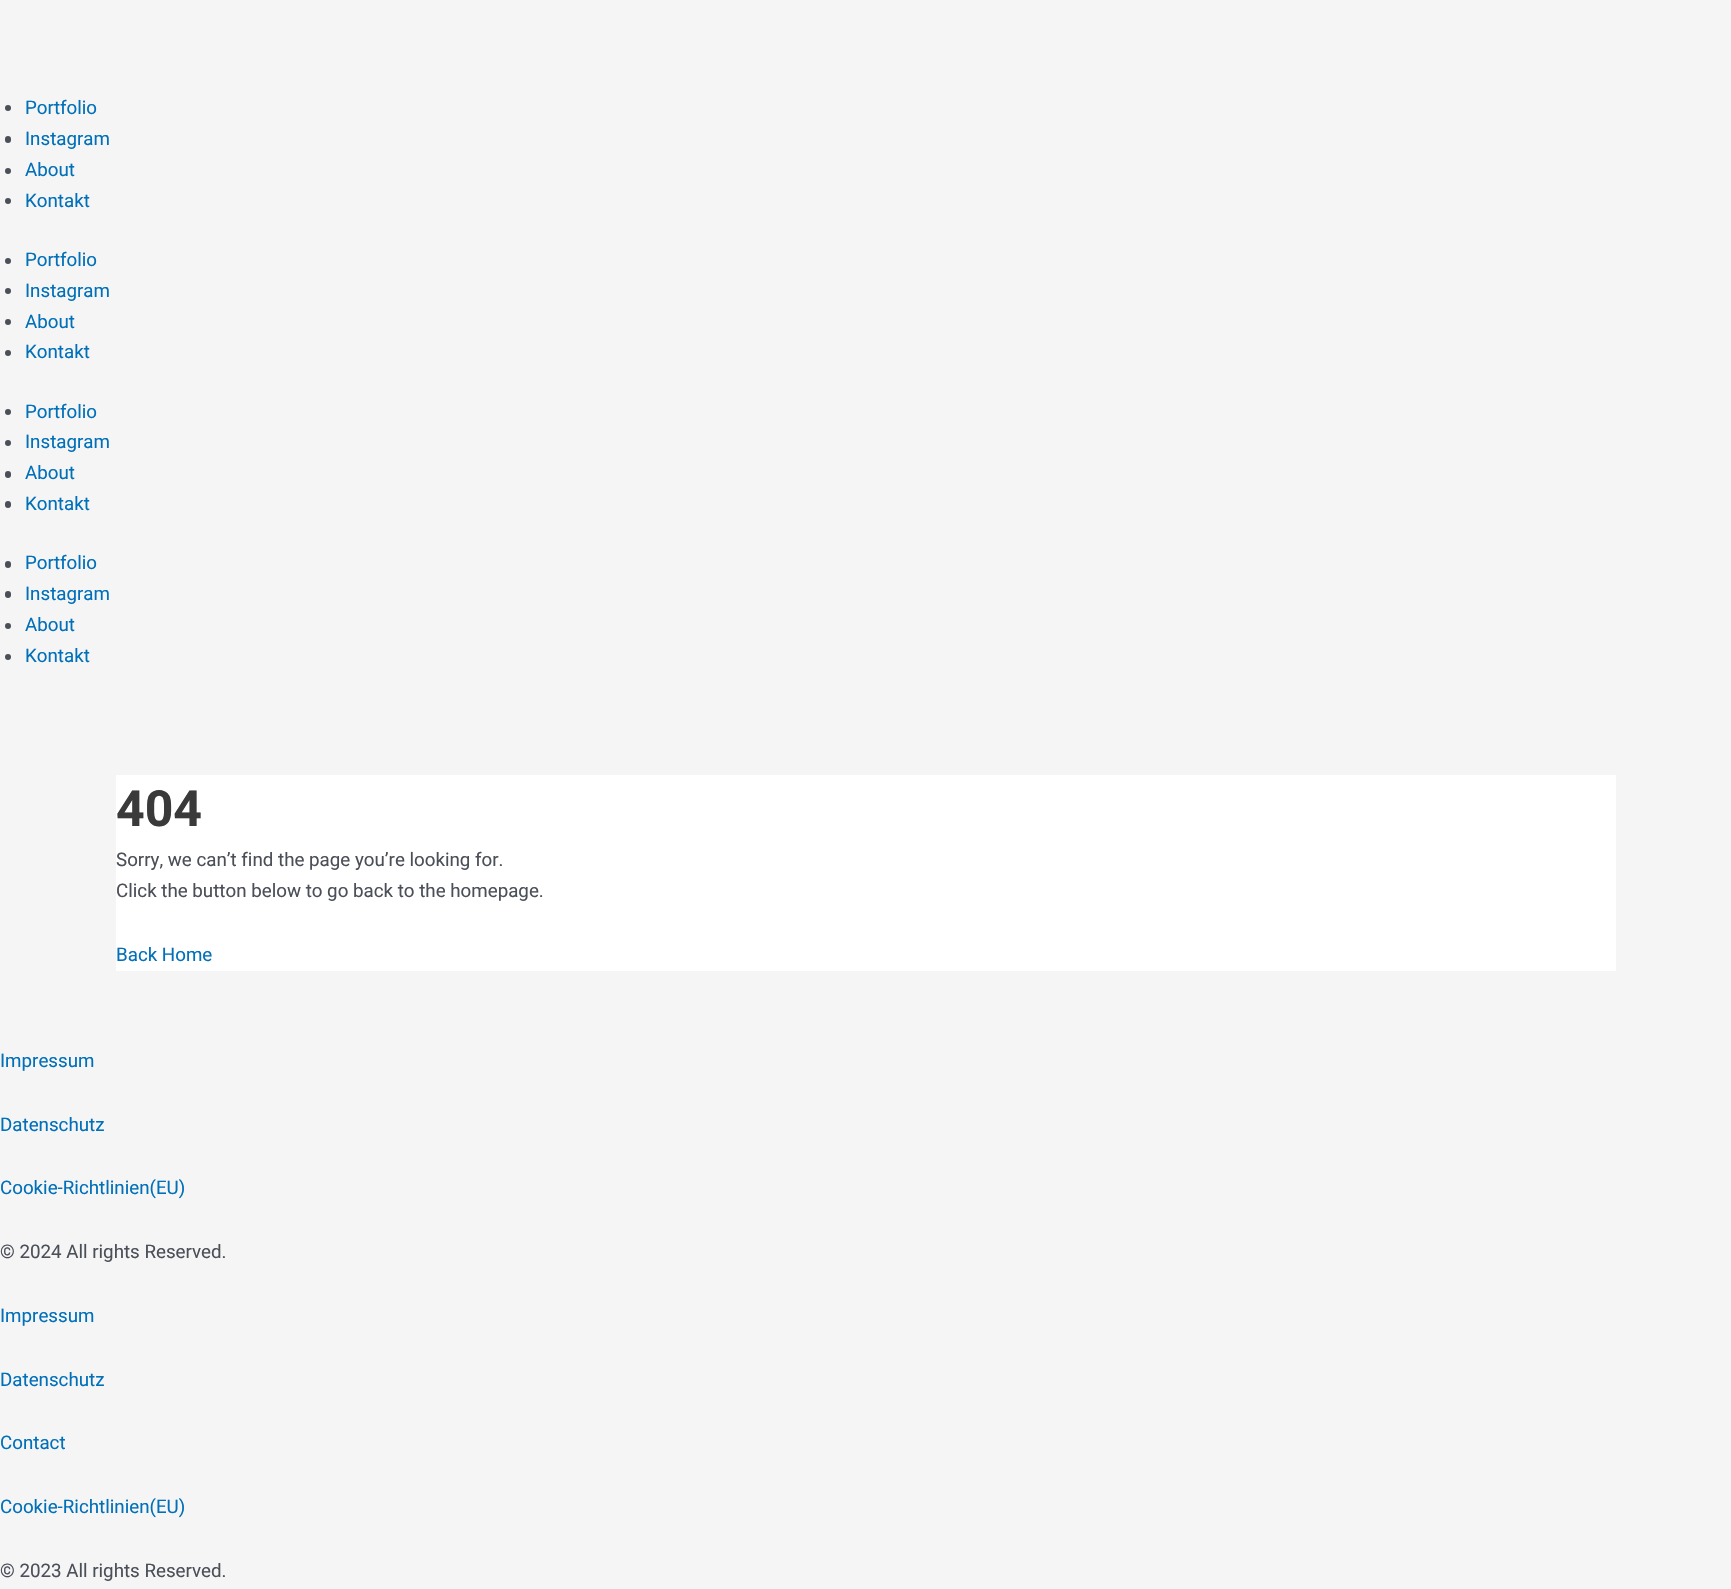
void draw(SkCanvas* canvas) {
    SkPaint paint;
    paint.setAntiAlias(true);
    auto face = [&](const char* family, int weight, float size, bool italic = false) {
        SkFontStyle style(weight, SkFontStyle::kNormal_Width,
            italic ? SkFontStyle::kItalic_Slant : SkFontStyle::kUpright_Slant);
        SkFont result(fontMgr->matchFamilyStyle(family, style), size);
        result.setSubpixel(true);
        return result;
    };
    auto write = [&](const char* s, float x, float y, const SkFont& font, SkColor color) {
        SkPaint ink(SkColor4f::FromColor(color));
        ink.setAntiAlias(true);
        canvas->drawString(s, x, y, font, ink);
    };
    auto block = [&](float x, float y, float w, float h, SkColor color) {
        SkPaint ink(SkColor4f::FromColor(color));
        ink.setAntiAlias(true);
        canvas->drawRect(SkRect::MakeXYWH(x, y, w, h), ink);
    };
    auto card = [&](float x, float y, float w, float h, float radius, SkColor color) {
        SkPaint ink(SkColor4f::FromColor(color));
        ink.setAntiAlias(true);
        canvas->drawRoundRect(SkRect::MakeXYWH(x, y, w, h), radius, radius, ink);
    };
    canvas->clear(SkColorSetRGB(245, 245, 245));
    paint.setColor(SkColorSetRGB(75, 79, 88));
    canvas->drawCircle(8, 108, 3, paint);
    auto kFont1 = face("Roboto", 400, 18.75f);
    write("Portfolio", 25, 114, kFont1, SkColorSetRGB(1, 112, 185));
    card(5, 136, 6, 7, 3, SkColorSetRGB(75, 79, 88));
    write("Instagram", 25, 145, kFont1, SkColorSetRGB(1, 112, 185));
    canvas->drawCircle(8, 171, 3, paint);
    write("About", 25, 176, kFont1, SkColorSetRGB(1, 112, 185));
    canvas->drawCircle(8, 201, 3, paint);
    write("Kontakt", 25, 207, kFont1, SkColorSetRGB(1, 112, 185));
    canvas->drawCircle(8, 261, 3, paint);
    write("Portfolio", 25, 266, kFont1, SkColorSetRGB(1, 112, 185));
    canvas->drawCircle(8, 291, 3, paint);
    write("Instagram", 25, 297, kFont1, SkColorSetRGB(1, 112, 185));
    canvas->drawCircle(8, 322, 3, paint);
    write("About", 25, 328, kFont1, SkColorSetRGB(1, 112, 185));
    canvas->drawCircle(8, 353, 3, paint);
    write("Kontakt", 25, 358, kFont1, SkColorSetRGB(1, 112, 185));
    canvas->drawCircle(8, 412, 3, paint);
    write("Portfolio", 25, 418, kFont1, SkColorSetRGB(1, 112, 185));
    canvas->drawCircle(8, 443, 3, paint);
    write("Instagram", 25, 448, kFont1, SkColorSetRGB(1, 112, 185));
    card(5, 471, 6, 7, 3, SkColorSetRGB(75, 79, 88));
    write("About", 25, 479, kFont1, SkColorSetRGB(1, 112, 185));
    card(5, 501, 6, 7, 3, SkColorSetRGB(75, 79, 88));
    write("Kontakt", 25, 510, kFont1, SkColorSetRGB(1, 112, 185));
    card(5, 561, 6, 7, 3, SkColorSetRGB(75, 79, 88));
    write("Portfolio", 25, 569, kFont1, SkColorSetRGB(1, 112, 185));
    card(5, 591, 6, 7, 3, SkColorSetRGB(75, 79, 88));
    write("Instagram", 25, 600, kFont1, SkColorSetRGB(1, 112, 185));
    canvas->drawCircle(8, 626, 3, paint);
    write("About", 25, 631, kFont1, SkColorSetRGB(1, 112, 185));
    canvas->drawCircle(8, 657, 3, paint);
    write("Kontakt", 25, 662, kFont1, SkColorSetRGB(1, 112, 185));
    block(116, 775, 1500, 196, SK_ColorWHITE);
    auto kFont2 = face("Roboto", 700, 50);
    write("404", 116, 826, kFont2, SkColorSetRGB(58, 58, 58));
    write("Sorry, we can’t find the page you’re looking for.", 116, 866, kFont1, SkColorSetRGB(75, 79, 88));
    write("Click the button below to go back to the homepage.", 116, 897, kFont1, SkColorSetRGB(75, 79, 88));
    write("Back Home", 116, 961, kFont1, SkColorSetRGB(1, 112, 185));
    write("Impressum", 0, 1067, kFont1, SkColorSetRGB(1, 112, 185));
    write("Datenschutz", 0, 1131, kFont1, SkColorSetRGB(1, 112, 185));
    write("Cookie-Richtlinien(EU)", 0, 1194, kFont1, SkColorSetRGB(1, 112, 185));
    write("© 2024 All rights Reserved.", 0, 1258, kFont1, SkColorSetRGB(75, 79, 88));
    write("Impressum", 0, 1322, kFont1, SkColorSetRGB(1, 112, 185));
    write("Datenschutz", 0, 1386, kFont1, SkColorSetRGB(1, 112, 185));
    write("Contact", 0, 1449, kFont1, SkColorSetRGB(1, 112, 185));
    write("Cookie-Richtlinien(EU)", 0, 1513, kFont1, SkColorSetRGB(1, 112, 185));
    write("© 2023 All rights Reserved.", 0, 1577, kFont1, SkColorSetRGB(75, 79, 88));
}
